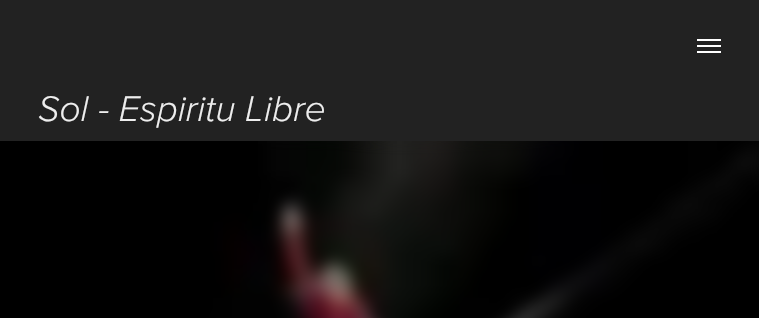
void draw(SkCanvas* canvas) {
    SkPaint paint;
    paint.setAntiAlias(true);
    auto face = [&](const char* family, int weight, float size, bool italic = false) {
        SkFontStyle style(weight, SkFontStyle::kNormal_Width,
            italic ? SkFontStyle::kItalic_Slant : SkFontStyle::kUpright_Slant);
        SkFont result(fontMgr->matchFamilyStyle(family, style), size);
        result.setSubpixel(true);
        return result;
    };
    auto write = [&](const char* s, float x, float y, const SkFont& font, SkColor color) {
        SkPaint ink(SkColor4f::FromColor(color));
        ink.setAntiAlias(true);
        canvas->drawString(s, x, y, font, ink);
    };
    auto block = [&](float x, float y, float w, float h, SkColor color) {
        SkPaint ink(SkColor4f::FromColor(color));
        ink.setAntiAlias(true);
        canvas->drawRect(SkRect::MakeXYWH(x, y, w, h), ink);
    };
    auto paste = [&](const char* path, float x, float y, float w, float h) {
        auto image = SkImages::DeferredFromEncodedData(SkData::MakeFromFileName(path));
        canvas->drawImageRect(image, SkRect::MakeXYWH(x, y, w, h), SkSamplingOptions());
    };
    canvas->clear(SkColorSetRGB(34, 34, 34));
    block(697, 39, 24, 2, SK_ColorWHITE);
    block(697, 45, 24, 2, SK_ColorWHITE);
    block(697, 51, 24, 2, SK_ColorWHITE);
    auto kFont1 = face("Proxima Nova", 300, 37, true);
    write("Sol - Espiritu Libre", 38, 121, kFont1, SkColorSetRGB(238, 238, 238));
    paste("pic1.png", 0, 141, 759, 177);
}
